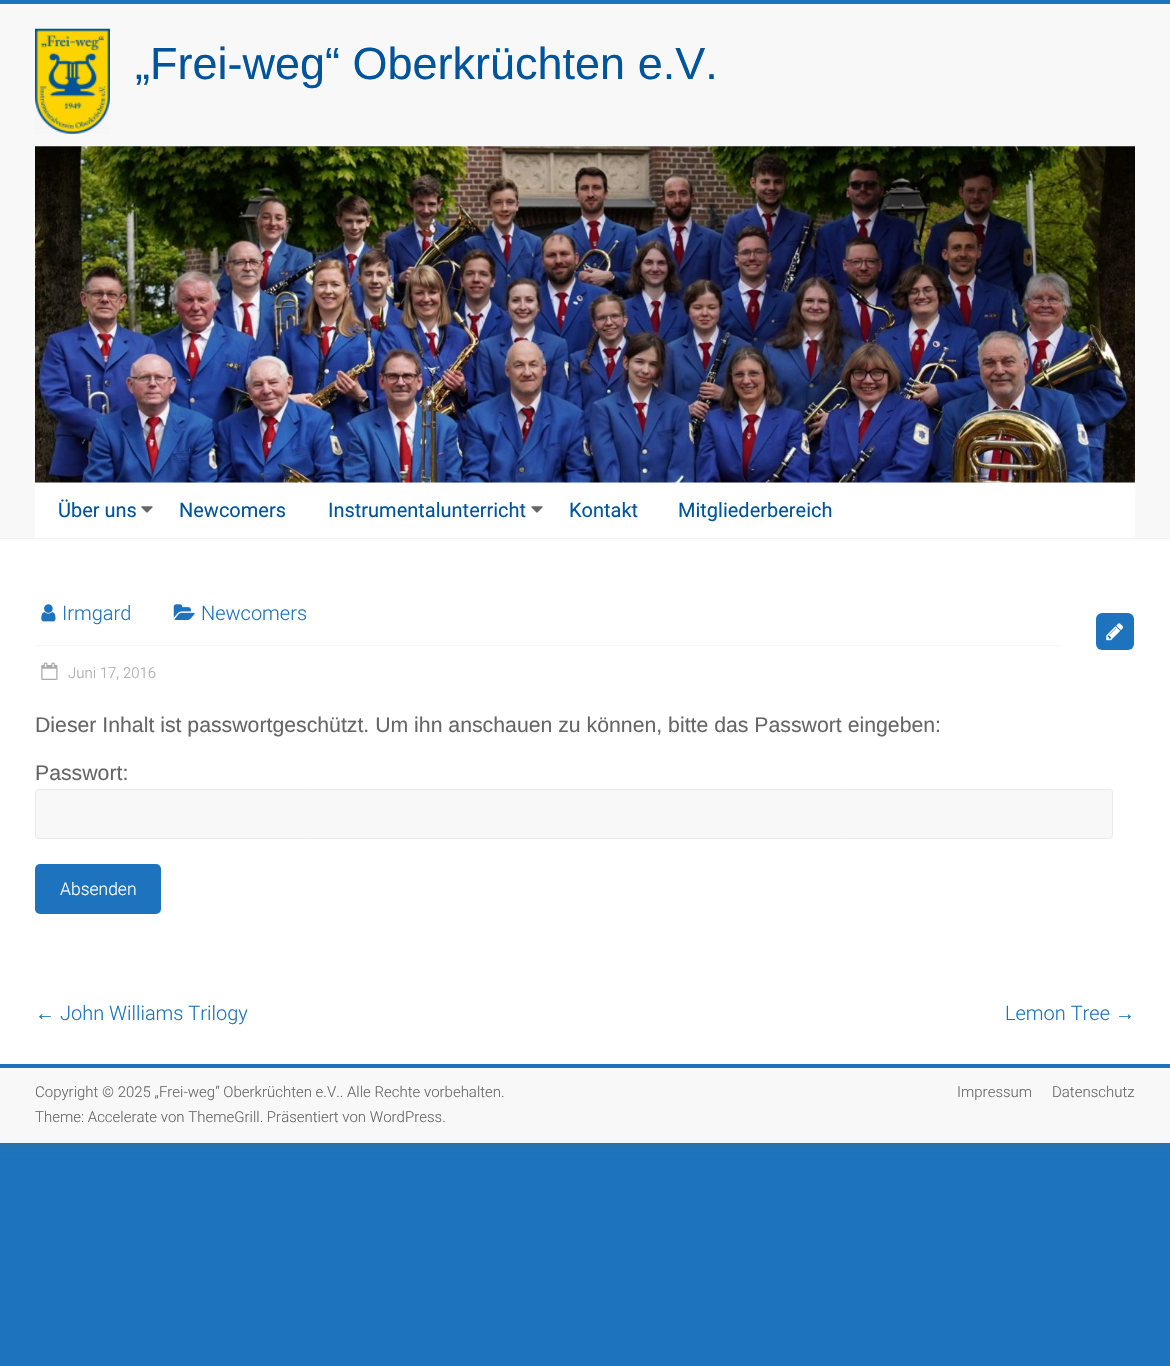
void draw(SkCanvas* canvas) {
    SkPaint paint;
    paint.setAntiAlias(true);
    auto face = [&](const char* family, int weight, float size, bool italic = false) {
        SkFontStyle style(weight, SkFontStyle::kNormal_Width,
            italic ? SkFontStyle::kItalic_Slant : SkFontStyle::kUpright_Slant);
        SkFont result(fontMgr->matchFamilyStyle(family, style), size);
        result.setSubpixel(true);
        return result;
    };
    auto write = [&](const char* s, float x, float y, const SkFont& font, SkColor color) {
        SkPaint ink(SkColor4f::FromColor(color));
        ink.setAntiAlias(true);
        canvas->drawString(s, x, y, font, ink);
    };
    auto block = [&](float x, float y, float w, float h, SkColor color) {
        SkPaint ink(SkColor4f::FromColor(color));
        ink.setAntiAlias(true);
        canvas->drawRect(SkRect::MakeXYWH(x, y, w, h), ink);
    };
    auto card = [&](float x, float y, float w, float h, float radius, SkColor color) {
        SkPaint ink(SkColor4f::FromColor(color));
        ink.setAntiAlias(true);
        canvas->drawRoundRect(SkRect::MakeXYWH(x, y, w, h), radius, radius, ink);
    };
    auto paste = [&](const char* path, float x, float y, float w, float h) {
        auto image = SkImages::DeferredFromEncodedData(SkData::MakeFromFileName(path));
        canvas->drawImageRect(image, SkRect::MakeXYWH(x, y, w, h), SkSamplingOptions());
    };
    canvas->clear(SkColorSetRGB(30, 115, 190));
    paint.setColor(SkColorSetARGB(77, 100, 100, 100));
    paint.setMaskFilter(SkMaskFilter::MakeBlur(kNormal_SkBlurStyle, 4));
    canvas->drawRect(SkRect::MakeXYWH(0, 3, 1170, 1142), paint);
    paint.setMaskFilter(nullptr);
    block(0, 539, 1170, 525, SK_ColorWHITE);
    block(0, 0, 1170, 4, SkColorSetRGB(30, 115, 190));
    block(0, 4, 1170, 534, SkColorSetRGB(248, 248, 248));
    block(0, 538, 1170, 1, SkColorSetRGB(242, 242, 242));
    paste("pic1.png", 35, 28, 75, 106);
    auto kFont1 = face("Liberation Sans", 400, 45);
    write("„Frei-weg“ Oberkrüchten e.V.", 135, 79, kFont1, SkColorSetRGB(0, 84, 156));
    paste("pic2.png", 35, 146, 1100, 337);
    block(35, 483, 1100, 55, SK_ColorWHITE);
    auto kFont2 = face("Roboto", 400, 20);
    write("Über uns", 58, 517, kFont2, SkColorSetRGB(0, 84, 156));
    paste("pic3.png", 141, 506, 12, 7);
    write("Newcomers", 179, 517, kFont2, SkColorSetRGB(0, 84, 156));
    write("Instrumentalunterricht", 328, 517, kFont2, SkColorSetRGB(0, 84, 156));
    paste("pic3.png", 531, 506, 12, 7);
    write("Kontakt", 569, 517, kFont2, SkColorSetRGB(0, 84, 156));
    write("Mitgliederbereich", 678, 517, kFont2, SkColorSetRGB(0, 84, 156));
    paste("pic4.png", 41, 604, 15, 18);
    auto kFont3 = face("Roboto", 300, 20);
    write("Irmgard", 62, 620, kFont3, SkColorSetRGB(30, 115, 190));
    paste("pic5.png", 173, 604, 22, 16);
    write("Newcomers", 201, 620, kFont3, SkColorSetRGB(30, 115, 190));
    block(35, 645, 1025, 1, SkColorSetRGB(248, 248, 248));
    card(1096, 613, 38, 37, 6, SkColorSetRGB(30, 115, 190));
    paste("pic6.png", 1106, 623, 18, 18);
    paste("pic7.png", 41, 662, 17, 18);
    auto kFont4 = face("Roboto", 300, 15);
    write("Juni 17, 2016", 68, 678, kFont4, SkColorSetRGB(170, 170, 170));
    auto kFont5 = face("Liberation Sans", 400, 21.25f);
    write("Dieser Inhalt ist passwortgeschützt. Um ihn anschauen zu können, bitte das Passwort eingeben:", 35, 732, kFont5, SkColorSetRGB(102, 102, 102));
    write("Passwort:", 35, 780, kFont5, SkColorSetRGB(102, 102, 102));
    paint.setColor(SkColorSetRGB(248, 248, 248));
    canvas->drawRoundRect(SkRect::MakeXYWH(35.5f, 789.5f, 1077, 49), 3.5f, 3.5f, paint);
    paint.setStyle(SkPaint::kStroke_Style);
    paint.setStrokeWidth(1);
    paint.setColor(SkColorSetRGB(234, 234, 234));
    canvas->drawRoundRect(SkRect::MakeXYWH(35.5f, 789.5f, 1077, 49), 3.5f, 3.5f, paint);
    card(35, 864, 126, 50, 5, SkColorSetRGB(30, 115, 190));
    auto kFont6 = face("Roboto", 300, 17.5f);
    write("Absenden", 60, 895, kFont6, SK_ColorWHITE);
    auto kFont7 = face("Liberation Sans", 400, 20);
    write("←", 35, 1020, kFont7, SkColorSetRGB(30, 115, 190));
    write("John Williams Trilogy", 60, 1020, kFont3, SkColorSetRGB(30, 115, 190));
    write("Lemon Tree", 1005, 1020, kFont3, SkColorSetRGB(30, 115, 190));
    write("→", 1115, 1020, kFont7, SkColorSetRGB(30, 115, 190));
    block(0, 1068, 1170, 75, SkColorSetRGB(248, 248, 248));
    block(0, 1064, 1170, 4, SkColorSetRGB(30, 115, 190));
    write("Copyright © 2025 „Frei-weg“ Oberkrüchten e.V.. Alle Rechte vorbehalten.", 35, 1097, kFont4, SkColorSetRGB(102, 102, 102));
    write("Theme: Accelerate von ThemeGrill. Präsentiert von WordPress.", 35, 1122, kFont4, SkColorSetRGB(102, 102, 102));
    write("Impressum", 957, 1097, kFont4, SkColorSetRGB(102, 102, 102));
    write("Datenschutz", 1052, 1097, kFont4, SkColorSetRGB(102, 102, 102));
}
